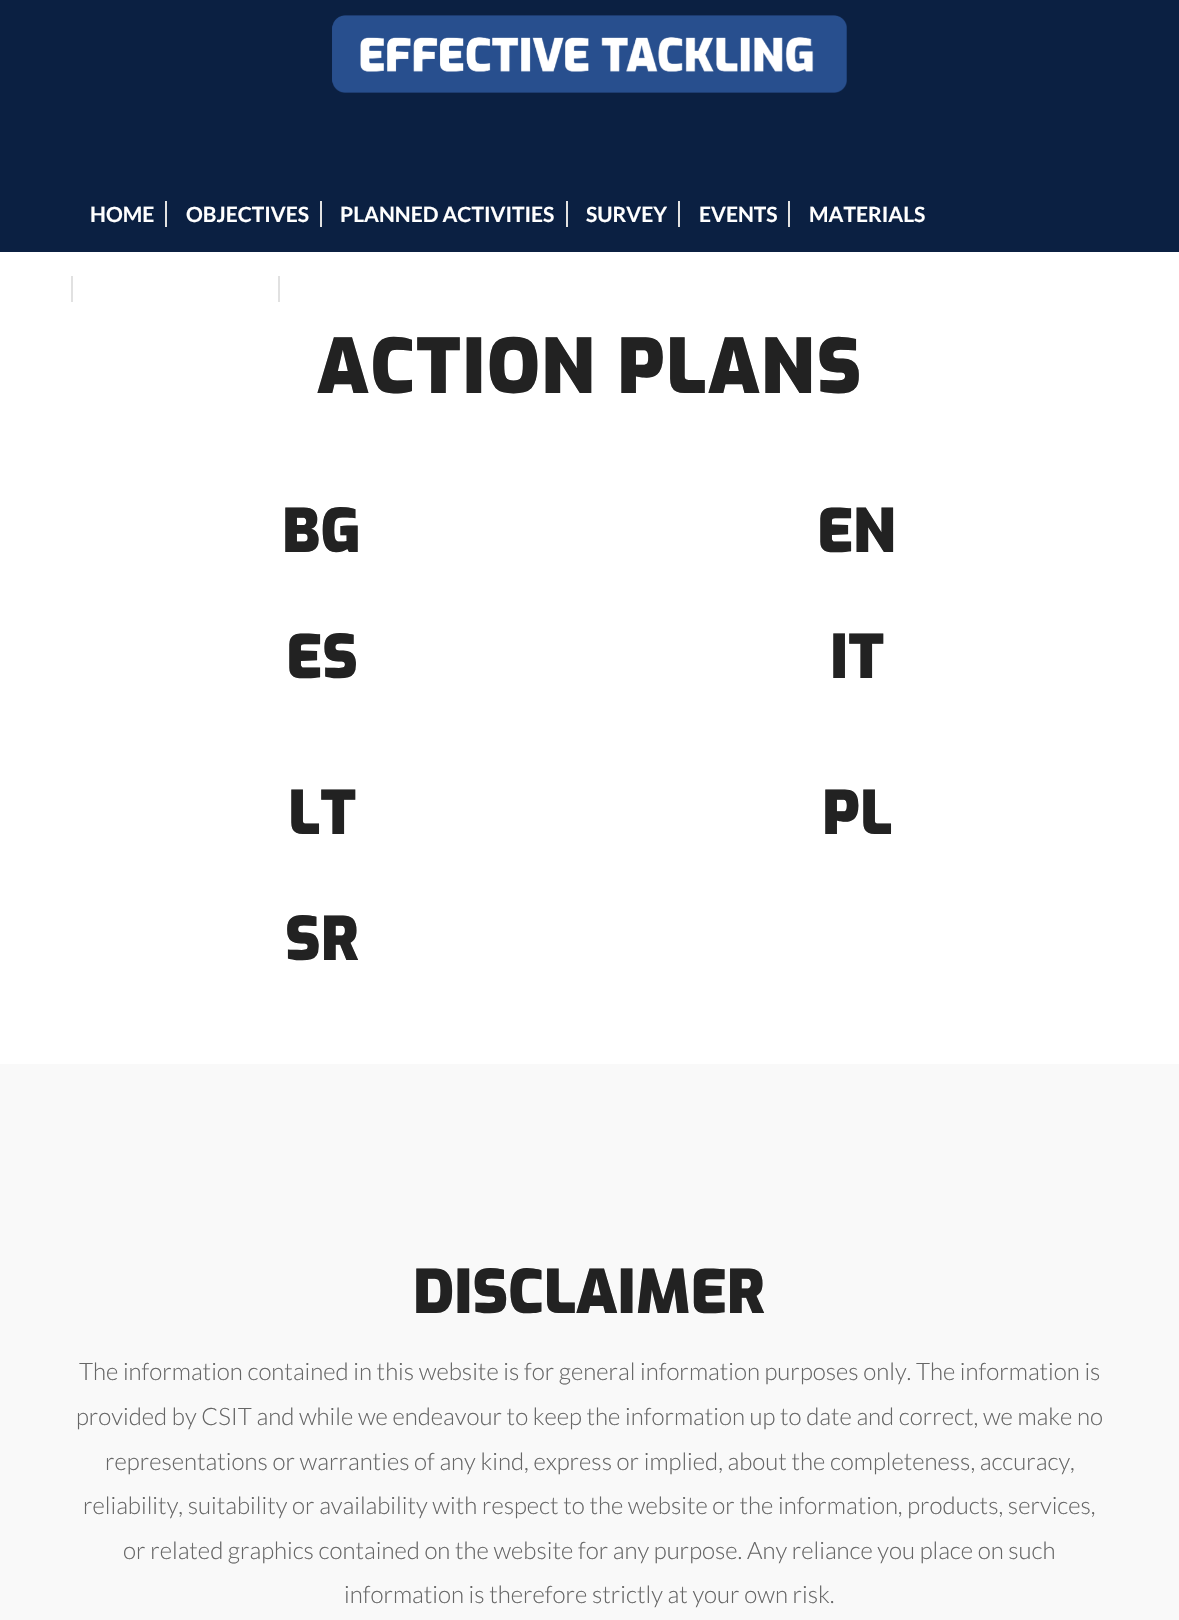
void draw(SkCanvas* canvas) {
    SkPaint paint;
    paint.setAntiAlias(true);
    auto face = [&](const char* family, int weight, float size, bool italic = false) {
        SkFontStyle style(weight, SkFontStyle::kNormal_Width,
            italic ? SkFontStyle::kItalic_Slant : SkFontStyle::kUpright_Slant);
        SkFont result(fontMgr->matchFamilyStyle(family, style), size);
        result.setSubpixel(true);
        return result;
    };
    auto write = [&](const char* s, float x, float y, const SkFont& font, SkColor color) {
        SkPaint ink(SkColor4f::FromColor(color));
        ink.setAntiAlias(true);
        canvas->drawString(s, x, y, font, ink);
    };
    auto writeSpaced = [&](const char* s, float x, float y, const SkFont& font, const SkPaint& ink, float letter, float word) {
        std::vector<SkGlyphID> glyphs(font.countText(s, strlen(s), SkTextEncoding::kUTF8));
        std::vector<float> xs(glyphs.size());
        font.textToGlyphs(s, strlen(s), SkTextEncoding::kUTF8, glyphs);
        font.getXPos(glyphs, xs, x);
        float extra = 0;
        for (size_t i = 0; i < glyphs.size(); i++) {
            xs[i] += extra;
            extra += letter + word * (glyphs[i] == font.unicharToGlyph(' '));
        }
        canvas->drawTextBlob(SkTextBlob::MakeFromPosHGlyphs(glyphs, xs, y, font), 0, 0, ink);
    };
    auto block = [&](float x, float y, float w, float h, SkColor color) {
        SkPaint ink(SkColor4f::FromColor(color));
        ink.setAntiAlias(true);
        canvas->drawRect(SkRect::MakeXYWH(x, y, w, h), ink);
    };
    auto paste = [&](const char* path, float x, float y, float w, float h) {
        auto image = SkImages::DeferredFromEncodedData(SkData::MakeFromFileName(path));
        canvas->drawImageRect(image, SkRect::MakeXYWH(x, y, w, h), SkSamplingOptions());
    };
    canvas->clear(SkColorSetRGB(11, 32, 66));
    paste("pic1.png", 332, 15, 515, 78);
    auto kFont1 = face("Lato", 700, 21);
    write("HOME", 90, 222, kFont1, SK_ColorWHITE);
    write("OBJECTIVES", 186, 222, kFont1, SK_ColorWHITE);
    block(165, 201, 2, 26, SkColorSetRGB(225, 225, 225));
    write("PLANNED ACTIVITIES", 340, 222, kFont1, SK_ColorWHITE);
    block(320, 201, 2, 26, SkColorSetRGB(225, 225, 225));
    write("SURVEY", 586, 222, kFont1, SK_ColorWHITE);
    block(566, 201, 2, 26, SkColorSetRGB(225, 225, 225));
    write("EVENTS", 699, 222, kFont1, SK_ColorWHITE);
    block(678, 201, 2, 26, SkColorSetRGB(225, 225, 225));
    write("MATERIALS", 809, 222, kFont1, SK_ColorWHITE);
    block(788, 201, 2, 26, SkColorSetRGB(225, 225, 225));
    block(0, 252, 1179, 812, SK_ColorWHITE);
    block(71, 276, 2, 26, SkColorSetRGB(225, 225, 225));
    block(278, 276, 2, 26, SkColorSetRGB(225, 225, 225));
    auto kFont2 = face("Exo", 900, 75);
    paint.setColor(SkColorSetRGB(34, 34, 34));
    writeSpaced("ACTION PLANS", 317, 393, kFont2, paint, 1.5f, 0);
    auto kFont3 = face("Exo", 900, 60);
    write("BG", 282, 552, kFont3, SkColorSetRGB(34, 34, 34));
    write("EN", 817, 552, kFont3, SkColorSetRGB(34, 34, 34));
    write("ES", 286, 678, kFont3, SkColorSetRGB(34, 34, 34));
    write("IT", 830, 678, kFont3, SkColorSetRGB(34, 34, 34));
    write("LT", 288, 834, kFont3, SkColorSetRGB(34, 34, 34));
    write("PL", 822, 834, kFont3, SkColorSetRGB(34, 34, 34));
    write("SR", 285, 960, kFont3, SkColorSetRGB(34, 34, 34));
    block(0, 1064, 1179, 556, SkColorSetRGB(249, 249, 249));
    write("DISCLAIMER", 413, 1313, kFont3, SkColorSetRGB(34, 34, 34));
    auto kFont4 = face("Lato", 300, 24);
    write("The information contained in this website is for general information purposes only. The information is", 79, 1380, kFont4, SkColorSetRGB(102, 102, 102));
    write("provided by CSIT and while we endeavour to keep the information up to date and correct, we make no", 76, 1425, kFont4, SkColorSetRGB(102, 102, 102));
    write("representations or warranties of any kind, express or implied, about the completeness, accuracy,", 105, 1470, kFont4, SkColorSetRGB(102, 102, 102));
    write("reliability, suitability or availability with respect to the website or the information, products, services,", 83, 1514, kFont4, SkColorSetRGB(102, 102, 102));
    write("or related graphics contained on the website for any purpose. Any reliance you place on such", 123, 1559, kFont4, SkColorSetRGB(102, 102, 102));
    write("information is therefore strictly at your own risk.", 344, 1603, kFont4, SkColorSetRGB(102, 102, 102));
}
